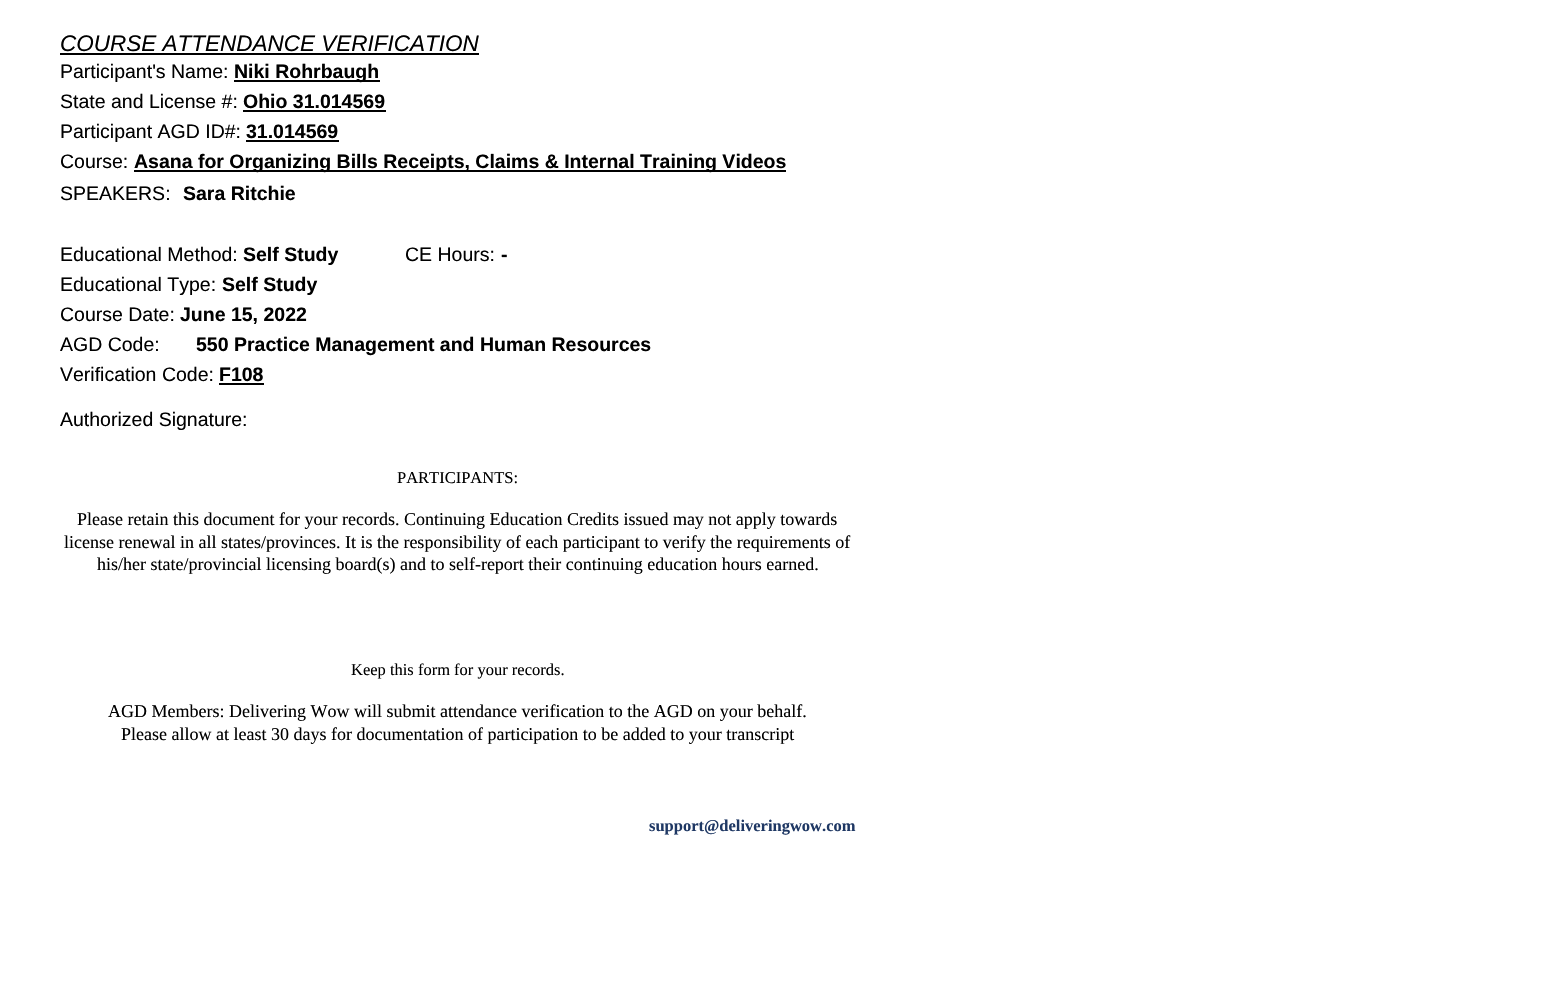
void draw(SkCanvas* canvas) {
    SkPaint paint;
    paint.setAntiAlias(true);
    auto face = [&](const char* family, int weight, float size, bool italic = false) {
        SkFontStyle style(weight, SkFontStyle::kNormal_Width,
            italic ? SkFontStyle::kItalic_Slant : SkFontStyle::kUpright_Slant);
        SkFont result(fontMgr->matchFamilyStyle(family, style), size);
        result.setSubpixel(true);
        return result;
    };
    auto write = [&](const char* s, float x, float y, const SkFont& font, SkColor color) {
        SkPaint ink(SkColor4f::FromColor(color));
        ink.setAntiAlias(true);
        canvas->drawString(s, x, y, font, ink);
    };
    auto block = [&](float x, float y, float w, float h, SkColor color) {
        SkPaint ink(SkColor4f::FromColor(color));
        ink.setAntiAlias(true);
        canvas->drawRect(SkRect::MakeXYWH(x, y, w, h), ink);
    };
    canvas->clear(SK_ColorWHITE);
    auto kFont1 = face("Liberation Sans", 400, 22.5f, true);
    write("COURSE ATTENDANCE VERIFICATION", 60, 51, kFont1, SK_ColorBLACK);
    block(60, 53, 419, 2, SK_ColorBLACK);
    auto kFont2 = face("Liberation Sans", 400, 19.5f);
    write("Participant's Name:", 60, 78, kFont2, SK_ColorBLACK);
    block(234, 80, 146, 2, SK_ColorBLACK);
    auto kFont3 = face("Liberation Sans", 700, 19.5f);
    write("Niki Rohrbaugh", 234, 78, kFont3, SK_ColorBLACK);
    write("State and License #:", 60, 108, kFont2, SK_ColorBLACK);
    write("Ohio 31.014569", 243, 108, kFont3, SK_ColorBLACK);
    block(243, 110, 143, 2, SK_ColorBLACK);
    write("Participant AGD ID#:", 60, 138, kFont2, SK_ColorBLACK);
    write("31.014569", 246, 138, kFont3, SK_ColorBLACK);
    block(246, 140, 93, 2, SK_ColorBLACK);
    write("Course:", 60, 168, kFont2, SK_ColorBLACK);
    block(134, 170, 652, 2, SK_ColorBLACK);
    write("Asana for Organizing Bills Receipts, Claims & Internal Training Videos", 134, 168, kFont3, SK_ColorBLACK);
    write("SPEAKERS:", 60, 200, kFont2, SK_ColorBLACK);
    write("Sara Ritchie", 183, 200, kFont3, SK_ColorBLACK);
    write("Educational Method:", 60, 261, kFont2, SK_ColorBLACK);
    write("Self Study", 243, 261, kFont3, SK_ColorBLACK);
    write("CE Hours:", 405, 261, kFont2, SK_ColorBLACK);
    write("-", 501, 261, kFont3, SK_ColorBLACK);
    write("Educational Type:", 60, 291, kFont2, SK_ColorBLACK);
    write("Self Study", 222, 291, kFont3, SK_ColorBLACK);
    write("Course Date:", 60, 321, kFont2, SK_ColorBLACK);
    write("June 15, 2022", 180, 321, kFont3, SK_ColorBLACK);
    write("AGD Code:", 60, 351, kFont2, SK_ColorBLACK);
    write("550 Practice Management and Human Resources", 196, 351, kFont3, SK_ColorBLACK);
    write("Verification Code:", 60, 381, kFont2, SK_ColorBLACK);
    write("F108", 219, 381, kFont3, SK_ColorBLACK);
    block(219, 383, 45, 2, SK_ColorBLACK);
    write("Authorized Signature:", 60, 426, kFont2, SK_ColorBLACK);
    auto kFont4 = face("Liberation Serif", 400, 16.5f);
    write("PARTICIPANTS:", 397, 483, kFont4, SK_ColorBLACK);
    auto kFont5 = face("Liberation Serif", 400, 18);
    write("Please retain this document for your records. Continuing Education Credits issued may not apply towards", 77, 525, kFont5, SK_ColorBLACK);
    write("license renewal in all states/provinces. It is the responsibility of each participant to verify the requirements of", 64, 548, kFont5, SK_ColorBLACK);
    write("his/her state/provincial licensing board(s) and to self-report their continuing education hours earned.", 97, 570, kFont5, SK_ColorBLACK);
    write("Keep this form for your records.", 351, 675, kFont4, SK_ColorBLACK);
    write("AGD Members: Delivering Wow will submit attendance verification to the AGD on your behalf.", 108, 717, kFont5, SK_ColorBLACK);
    write("Please allow at least 30 days for documentation of participation to be added to your transcript", 121, 740, kFont5, SK_ColorBLACK);
    auto kFont6 = face("Liberation Serif", 700, 16.5f);
    write("support@deliveringwow.com", 649, 831, kFont6, SkColorSetRGB(31, 56, 100));
}
